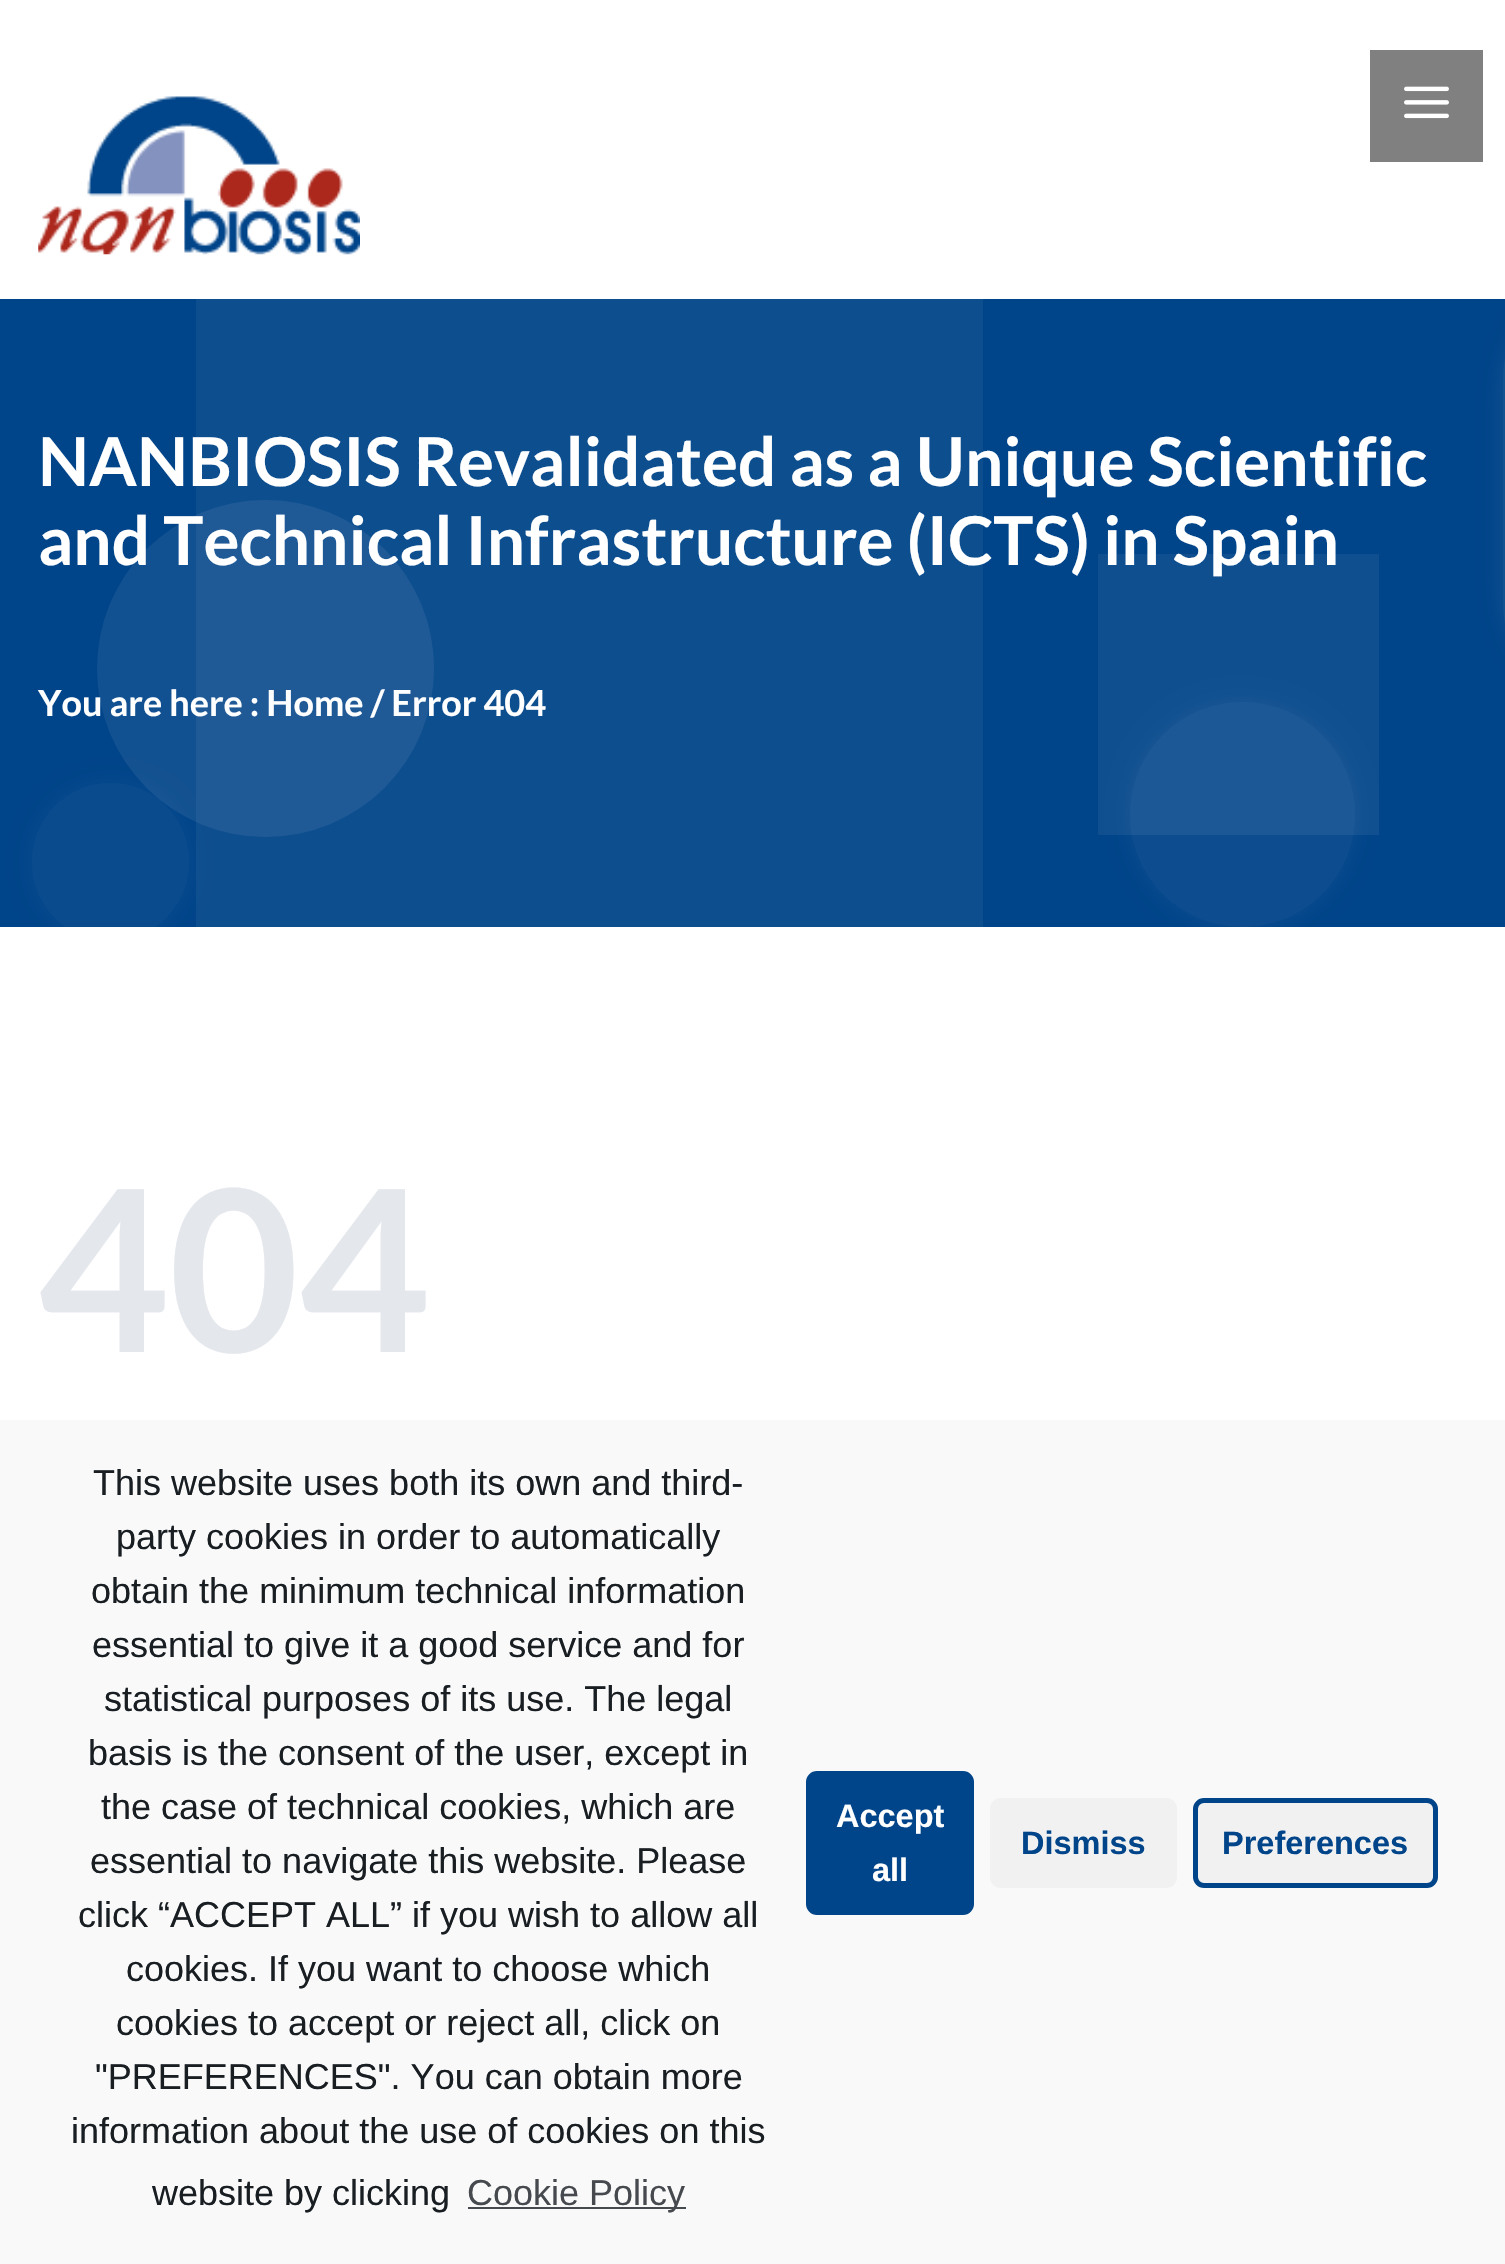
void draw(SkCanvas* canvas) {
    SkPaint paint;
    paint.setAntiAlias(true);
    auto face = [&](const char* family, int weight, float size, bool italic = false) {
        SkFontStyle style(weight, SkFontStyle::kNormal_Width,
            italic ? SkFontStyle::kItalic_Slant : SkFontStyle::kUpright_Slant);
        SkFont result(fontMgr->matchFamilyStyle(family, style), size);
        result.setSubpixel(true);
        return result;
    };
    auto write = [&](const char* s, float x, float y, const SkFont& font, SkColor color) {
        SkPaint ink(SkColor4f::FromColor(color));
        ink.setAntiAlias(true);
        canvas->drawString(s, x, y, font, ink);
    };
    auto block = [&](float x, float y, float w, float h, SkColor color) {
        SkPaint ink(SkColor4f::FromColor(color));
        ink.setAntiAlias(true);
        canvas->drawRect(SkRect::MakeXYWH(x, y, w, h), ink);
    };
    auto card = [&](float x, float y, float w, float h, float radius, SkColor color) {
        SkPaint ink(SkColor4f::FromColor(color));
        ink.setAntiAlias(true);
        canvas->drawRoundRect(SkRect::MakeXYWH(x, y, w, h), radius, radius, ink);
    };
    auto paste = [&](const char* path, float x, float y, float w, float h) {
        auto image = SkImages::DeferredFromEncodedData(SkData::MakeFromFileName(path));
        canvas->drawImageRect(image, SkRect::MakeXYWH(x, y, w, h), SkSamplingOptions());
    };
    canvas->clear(SK_ColorWHITE);
    paste("pic1.png", 38, 96, 322, 159);
    block(1370, 50, 113, 112, SkColorSetRGB(128, 128, 128));
    paste("pic2.png", 1404, 86, 45, 33);
    block(0, 299, 1505, 628, SkColorSetRGB(0, 68, 137));
    canvas->save();
    canvas->clipRect(SkRect::MakeXYWH(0, 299, 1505, 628));
    paint.setColor(SkColorSetRGB(10, 75, 142));
    paint.setMaskFilter(SkMaskFilter::MakeBlur(kNormal_SkBlurStyle, 11));
    canvas->drawRoundRect(SkRect::MakeXYWH(32, 783, 157, 158), 78.5f, 78.5f, paint);
    paint.setMaskFilter(nullptr);
    canvas->restore();
    canvas->save();
    canvas->clipRect(SkRect::MakeXYWH(0, 299, 1505, 628));
    card(32, 783, 157, 158, 78.5f, SkColorSetRGB(10, 75, 142));
    canvas->restore();
    paint.setColor(SkColorSetARGB(18, 255, 255, 255));
    canvas->drawCircle(265.5f, 668.5f, 168.5f, paint);
    block(196, 299, 787, 628, SkColorSetARGB(13, 255, 255, 255));
    paint.setColor(SkColorSetRGB(20, 83, 146));
    paint.setMaskFilter(SkMaskFilter::MakeBlur(kNormal_SkBlurStyle, 11));
    canvas->drawRoundRect(SkRect::MakeXYWH(1503, 266, 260, 450), 225, 225, paint);
    paint.setMaskFilter(nullptr);
    card(1503, 266, 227, 450, 225, SkColorSetRGB(20, 83, 146));
    auto kFont1 = face("Lato", 700, 67.5f);
    write("NANBIOSIS Revalidated as a Unique Scientific", 38, 486, kFont1, SK_ColorWHITE);
    write("and Technical Infrastructure (ICTS) in Spain", 38, 565, kFont1, SK_ColorWHITE);
    auto kFont2 = face("Lato", 700, 36);
    write("You are here : Home / Error 404", 38, 716, kFont2, SK_ColorWHITE);
    canvas->save();
    canvas->clipRect(SkRect::MakeXYWH(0, 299, 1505, 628));
    paint.setColor(SkColorSetRGB(13, 77, 143));
    paint.setMaskFilter(SkMaskFilter::MakeBlur(kNormal_SkBlurStyle, 11));
    canvas->drawRoundRect(SkRect::MakeXYWH(1130, 702, 225, 225), 112.5f, 112.5f, paint);
    paint.setMaskFilter(nullptr);
    canvas->restore();
    canvas->drawCircle(1242.5f, 814.5f, 112.5f, paint);
    block(1098, 554, 281, 281, SkColorSetARGB(15, 255, 255, 255));
    auto kFont3 = face("Lato", 700, 225);
    write("404", 38, 1352, kFont3, SkColorSetRGB(228, 231, 236));
    block(0, 1420, 1505, 844, SkColorSetRGB(249, 249, 249));
    auto kFont4 = face("Liberation Sans", 400, 36);
    write("This website uses both its own and third-", 93, 1495, kFont4, SkColorSetRGB(25, 30, 35));
    write("party cookies in order to automatically", 116, 1549, kFont4, SkColorSetRGB(25, 30, 35));
    write("obtain the minimum technical information", 91, 1603, kFont4, SkColorSetRGB(25, 30, 35));
    write("essential to give it a good service and for", 92, 1657, kFont4, SkColorSetRGB(25, 30, 35));
    write("statistical purposes of its use. The legal", 104, 1711, kFont4, SkColorSetRGB(25, 30, 35));
    write("basis is the consent of the user, except in", 88, 1765, kFont4, SkColorSetRGB(25, 30, 35));
    write("the case of technical cookies, which are", 101, 1819, kFont4, SkColorSetRGB(25, 30, 35));
    write("essential to navigate this website. Please", 90, 1873, kFont4, SkColorSetRGB(25, 30, 35));
    write("click “ACCEPT ALL” if you wish to allow all", 78, 1927, kFont4, SkColorSetRGB(25, 30, 35));
    write("cookies. If you want to choose which", 126, 1981, kFont4, SkColorSetRGB(25, 30, 35));
    write("cookies to accept or reject all, click on", 116, 2035, kFont4, SkColorSetRGB(25, 30, 35));
    write("\"PREFERENCES\". You can obtain more", 95, 2089, kFont4, SkColorSetRGB(25, 30, 35));
    write("information about the use of cookies on this", 71, 2143, kFont4, SkColorSetRGB(25, 30, 35));
    write("website by clicking", 152, 2205, kFont4, SkColorSetRGB(25, 30, 35));
    block(468, 2207, 218, 2, SkColorSetRGB(70, 74, 78));
    write("Cookie Policy", 467, 2205, kFont4, SkColorSetRGB(70, 74, 78));
    paint.setColor(SkColorSetRGB(0, 68, 137));
    canvas->drawRoundRect(SkRect::MakeXYWH(808.5f, 1773.5f, 163, 139), 8.5f, 8.5f, paint);
    paint.setStyle(SkPaint::kStroke_Style);
    paint.setStrokeWidth(5);
    canvas->drawRoundRect(SkRect::MakeXYWH(808.5f, 1773.5f, 163, 139), 8.5f, 8.5f, paint);
    auto kFont5 = face("Liberation Sans", 700, 32.5f);
    write("Accept", 836, 1827, kFont5, SK_ColorWHITE);
    write("all", 872, 1881, kFont5, SK_ColorWHITE);
    card(990, 1798, 187, 90, 11, SkColorSetRGB(241, 241, 241));
    write("Dismiss", 1021, 1854, kFont5, SkColorSetRGB(0, 68, 137));
    paint.setStyle(SkPaint::kFill_Style);
    paint.setColor(SkColorSetRGB(241, 241, 241));
    canvas->drawRoundRect(SkRect::MakeXYWH(1195.5f, 1800.5f, 240, 85), 8.5f, 8.5f, paint);
    paint.setStyle(SkPaint::kStroke_Style);
    paint.setColor(SkColorSetRGB(0, 68, 137));
    canvas->drawRoundRect(SkRect::MakeXYWH(1195.5f, 1800.5f, 240, 85), 8.5f, 8.5f, paint);
    write("Preferences", 1222, 1854, kFont5, SkColorSetRGB(0, 68, 137));
}
